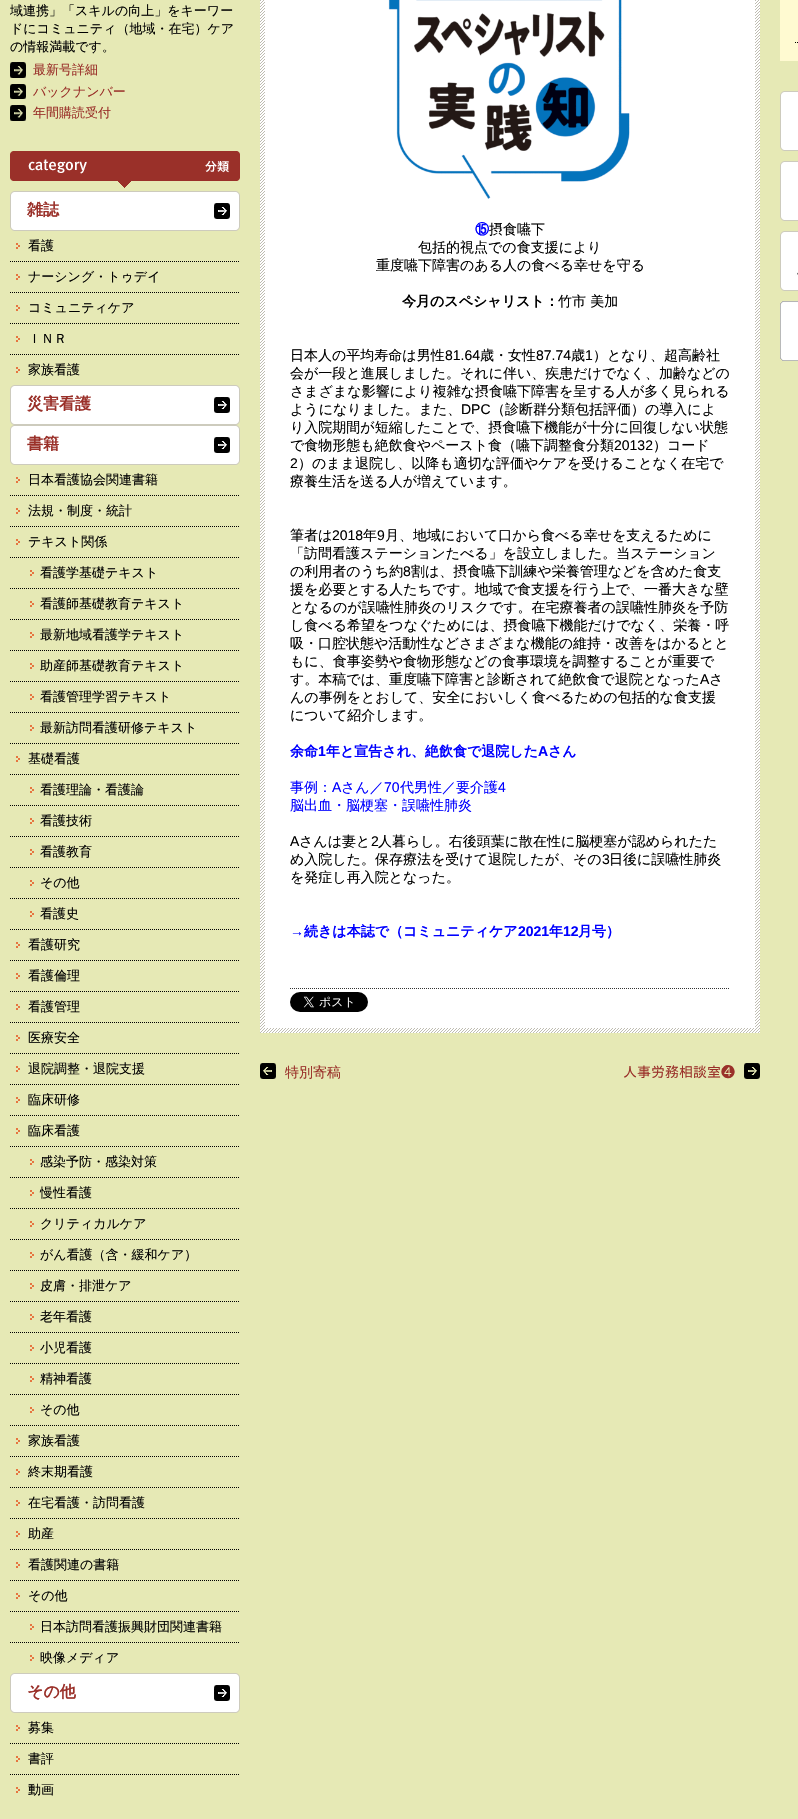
void draw(SkCanvas* canvas) {
    SkPaint paint;
    paint.setAntiAlias(true);
    auto face = [&](const char* family, int weight, float size, bool italic = false) {
        SkFontStyle style(weight, SkFontStyle::kNormal_Width,
            italic ? SkFontStyle::kItalic_Slant : SkFontStyle::kUpright_Slant);
        SkFont result(fontMgr->matchFamilyStyle(family, style), size);
        result.setSubpixel(true);
        return result;
    };
    auto write = [&](const char* s, float x, float y, const SkFont& font, SkColor color) {
        SkPaint ink(SkColor4f::FromColor(color));
        ink.setAntiAlias(true);
        canvas->drawString(s, x, y, font, ink);
    };
    auto block = [&](float x, float y, float w, float h, SkColor color) {
        SkPaint ink(SkColor4f::FromColor(color));
        ink.setAntiAlias(true);
        canvas->drawRect(SkRect::MakeXYWH(x, y, w, h), ink);
    };
    auto paste = [&](const char* path, float x, float y, float w, float h) {
        auto image = SkImages::DeferredFromEncodedData(SkData::MakeFromFileName(path));
        canvas->drawImageRect(image, SkRect::MakeXYWH(x, y, w, h), SkSamplingOptions());
    };
    canvas->clear(SkColorSetRGB(230, 233, 181));
    auto kFont1 = face("WenQuanYi Zen Hei", 500, 13);
    write("域連携」「スキルの向上」をキーワー", 10, 15, kFont1, SK_ColorBLACK);
    write("ドにコミュニティ（地域・在宅）ケア", 10, 33, kFont1, SK_ColorBLACK);
    write("の情報満載です。", 10, 51, kFont1, SK_ColorBLACK);
    paste("pic1.png", 10, 62, 16, 16);
    write("最新号詳細", 33, 74, kFont1, SkColorSetRGB(154, 48, 41));
    paste("pic2.png", 10, 84, 16, 15);
    write("バックナンバー", 33, 96, kFont1, SkColorSetRGB(154, 48, 41));
    paste("pic1.png", 10, 105, 16, 16);
    write("年間購読受付", 33, 117, kFont1, SkColorSetRGB(154, 48, 41));
    paste("pic3.png", 10, 151, 230, 37);
    paste("pic4.png", 10, 191, 230, 40);
    auto kFont2 = face("WenQuanYi Zen Hei", 700, 16);
    write("雑誌", 27, 215, kFont2, SkColorSetRGB(154, 48, 41));
    paste("pic5.png", 16, 243, 4, 6);
    write("看護", 28, 250, kFont1, SK_ColorBLACK);
    paste("pic5.png", 16, 274, 4, 6);
    paint.setStyle(SkPaint::kStroke_Style);
    paint.setStrokeWidth(1);
    paint.setColor(SK_ColorBLACK);
    paint.setPathEffect(SkDashPathEffect::Make({{1, 1}}, 0));
    canvas->drawPath(SkPathBuilder().moveTo(10, 261.5f).lineTo(240, 261.5f).detach(), paint);
    paint.setPathEffect(nullptr);
    write("ナーシング・トゥデイ", 28, 281, kFont1, SK_ColorBLACK);
    paste("pic5.png", 16, 305, 4, 6);
    paint.setPathEffect(SkDashPathEffect::Make({{1, 1}}, 0));
    canvas->drawPath(SkPathBuilder().moveTo(10, 292.5f).lineTo(240, 292.5f).detach(), paint);
    paint.setPathEffect(nullptr);
    write("コミュニティケア", 28, 312, kFont1, SK_ColorBLACK);
    paste("pic5.png", 16, 336, 4, 6);
    paint.setPathEffect(SkDashPathEffect::Make({{1, 1}}, 0));
    canvas->drawPath(SkPathBuilder().moveTo(10, 323.5f).lineTo(240, 323.5f).detach(), paint);
    paint.setPathEffect(nullptr);
    write("ＩＮＲ", 28, 343, kFont1, SK_ColorBLACK);
    paste("pic5.png", 16, 367, 4, 6);
    paint.setPathEffect(SkDashPathEffect::Make({{1, 1}}, 0));
    canvas->drawPath(SkPathBuilder().moveTo(10, 354.5f).lineTo(240, 354.5f).detach(), paint);
    paint.setPathEffect(nullptr);
    write("家族看護", 28, 374, kFont1, SK_ColorBLACK);
    paste("pic4.png", 10, 385, 230, 40);
    write("災害看護", 27, 409, kFont2, SkColorSetRGB(154, 48, 41));
    paste("pic4.png", 10, 425, 230, 40);
    write("書籍", 27, 449, kFont2, SkColorSetRGB(154, 48, 41));
    paste("pic5.png", 16, 477, 4, 6);
    write("日本看護協会関連書籍", 28, 484, kFont1, SK_ColorBLACK);
    paste("pic5.png", 16, 508, 4, 6);
    paint.setPathEffect(SkDashPathEffect::Make({{1, 1}}, 0));
    canvas->drawPath(SkPathBuilder().moveTo(10, 495.5f).lineTo(240, 495.5f).detach(), paint);
    paint.setPathEffect(nullptr);
    write("法規・制度・統計", 28, 515, kFont1, SK_ColorBLACK);
    paste("pic5.png", 16, 539, 4, 6);
    paint.setPathEffect(SkDashPathEffect::Make({{1, 1}}, 0));
    canvas->drawPath(SkPathBuilder().moveTo(10, 526.5f).lineTo(240, 526.5f).detach(), paint);
    paint.setPathEffect(nullptr);
    write("テキスト関係", 28, 546, kFont1, SK_ColorBLACK);
    paste("pic5.png", 30, 570, 4, 6);
    paint.setPathEffect(SkDashPathEffect::Make({{1, 1}}, 0));
    canvas->drawPath(SkPathBuilder().moveTo(10, 557.5f).lineTo(240, 557.5f).detach(), paint);
    paint.setPathEffect(nullptr);
    write("看護学基礎テキスト", 40, 577, kFont1, SK_ColorBLACK);
    paste("pic5.png", 30, 601, 4, 6);
    paint.setPathEffect(SkDashPathEffect::Make({{1, 1}}, 0));
    canvas->drawPath(SkPathBuilder().moveTo(10, 588.5f).lineTo(240, 588.5f).detach(), paint);
    paint.setPathEffect(nullptr);
    write("看護師基礎教育テキスト", 40, 608, kFont1, SK_ColorBLACK);
    paste("pic5.png", 30, 632, 4, 6);
    paint.setPathEffect(SkDashPathEffect::Make({{1, 1}}, 0));
    canvas->drawPath(SkPathBuilder().moveTo(10, 619.5f).lineTo(240, 619.5f).detach(), paint);
    paint.setPathEffect(nullptr);
    write("最新地域看護学テキスト", 40, 639, kFont1, SK_ColorBLACK);
    paste("pic5.png", 30, 663, 4, 6);
    paint.setPathEffect(SkDashPathEffect::Make({{1, 1}}, 0));
    canvas->drawPath(SkPathBuilder().moveTo(10, 650.5f).lineTo(240, 650.5f).detach(), paint);
    paint.setPathEffect(nullptr);
    write("助産師基礎教育テキスト", 40, 670, kFont1, SK_ColorBLACK);
    paste("pic5.png", 30, 694, 4, 6);
    paint.setPathEffect(SkDashPathEffect::Make({{1, 1}}, 0));
    canvas->drawPath(SkPathBuilder().moveTo(10, 681.5f).lineTo(240, 681.5f).detach(), paint);
    paint.setPathEffect(nullptr);
    write("看護管理学習テキスト", 40, 701, kFont1, SK_ColorBLACK);
    paste("pic5.png", 30, 725, 4, 6);
    paint.setPathEffect(SkDashPathEffect::Make({{1, 1}}, 0));
    canvas->drawPath(SkPathBuilder().moveTo(10, 712.5f).lineTo(240, 712.5f).detach(), paint);
    paint.setPathEffect(nullptr);
    write("最新訪問看護研修テキスト", 40, 732, kFont1, SK_ColorBLACK);
    paste("pic5.png", 16, 756, 4, 6);
    paint.setPathEffect(SkDashPathEffect::Make({{1, 1}}, 0));
    canvas->drawPath(SkPathBuilder().moveTo(10, 743.5f).lineTo(240, 743.5f).detach(), paint);
    paint.setPathEffect(nullptr);
    write("基礎看護", 28, 763, kFont1, SK_ColorBLACK);
    paste("pic5.png", 30, 787, 4, 6);
    paint.setPathEffect(SkDashPathEffect::Make({{1, 1}}, 0));
    canvas->drawPath(SkPathBuilder().moveTo(10, 774.5f).lineTo(240, 774.5f).detach(), paint);
    paint.setPathEffect(nullptr);
    write("看護理論・看護論", 40, 794, kFont1, SK_ColorBLACK);
    paste("pic5.png", 30, 818, 4, 6);
    paint.setPathEffect(SkDashPathEffect::Make({{1, 1}}, 0));
    canvas->drawPath(SkPathBuilder().moveTo(10, 805.5f).lineTo(240, 805.5f).detach(), paint);
    paint.setPathEffect(nullptr);
    write("看護技術", 40, 825, kFont1, SK_ColorBLACK);
    paste("pic5.png", 30, 849, 4, 6);
    paint.setPathEffect(SkDashPathEffect::Make({{1, 1}}, 0));
    canvas->drawPath(SkPathBuilder().moveTo(10, 836.5f).lineTo(240, 836.5f).detach(), paint);
    paint.setPathEffect(nullptr);
    write("看護教育", 40, 856, kFont1, SK_ColorBLACK);
    paste("pic5.png", 30, 880, 4, 6);
    paint.setPathEffect(SkDashPathEffect::Make({{1, 1}}, 0));
    canvas->drawPath(SkPathBuilder().moveTo(10, 867.5f).lineTo(240, 867.5f).detach(), paint);
    paint.setPathEffect(nullptr);
    write("その他", 40, 887, kFont1, SK_ColorBLACK);
    paste("pic5.png", 30, 911, 4, 6);
    paint.setPathEffect(SkDashPathEffect::Make({{1, 1}}, 0));
    canvas->drawPath(SkPathBuilder().moveTo(10, 898.5f).lineTo(240, 898.5f).detach(), paint);
    paint.setPathEffect(nullptr);
    write("看護史", 40, 918, kFont1, SK_ColorBLACK);
    paste("pic5.png", 16, 942, 4, 6);
    paint.setPathEffect(SkDashPathEffect::Make({{1, 1}}, 0));
    canvas->drawPath(SkPathBuilder().moveTo(10, 929.5f).lineTo(240, 929.5f).detach(), paint);
    paint.setPathEffect(nullptr);
    write("看護研究", 28, 949, kFont1, SK_ColorBLACK);
    paste("pic5.png", 16, 973, 4, 6);
    paint.setPathEffect(SkDashPathEffect::Make({{1, 1}}, 0));
    canvas->drawPath(SkPathBuilder().moveTo(10, 960.5f).lineTo(240, 960.5f).detach(), paint);
    paint.setPathEffect(nullptr);
    write("看護倫理", 28, 980, kFont1, SK_ColorBLACK);
    paste("pic5.png", 16, 1004, 4, 6);
    paint.setPathEffect(SkDashPathEffect::Make({{1, 1}}, 0));
    canvas->drawPath(SkPathBuilder().moveTo(10, 991.5f).lineTo(240, 991.5f).detach(), paint);
    paint.setPathEffect(nullptr);
    write("看護管理", 28, 1011, kFont1, SK_ColorBLACK);
    paste("pic5.png", 16, 1035, 4, 6);
    paint.setPathEffect(SkDashPathEffect::Make({{1, 1}}, 0));
    canvas->drawPath(SkPathBuilder().moveTo(10, 1022.5f).lineTo(240, 1022.5f).detach(), paint);
    paint.setPathEffect(nullptr);
    write("医療安全", 28, 1042, kFont1, SK_ColorBLACK);
    paste("pic5.png", 16, 1066, 4, 6);
    paint.setPathEffect(SkDashPathEffect::Make({{1, 1}}, 0));
    canvas->drawPath(SkPathBuilder().moveTo(10, 1053.5f).lineTo(240, 1053.5f).detach(), paint);
    paint.setPathEffect(nullptr);
    write("退院調整・退院支援", 28, 1073, kFont1, SK_ColorBLACK);
    paste("pic5.png", 16, 1097, 4, 6);
    paint.setPathEffect(SkDashPathEffect::Make({{1, 1}}, 0));
    canvas->drawPath(SkPathBuilder().moveTo(10, 1084.5f).lineTo(240, 1084.5f).detach(), paint);
    paint.setPathEffect(nullptr);
    write("臨床研修", 28, 1104, kFont1, SK_ColorBLACK);
    paste("pic5.png", 16, 1128, 4, 6);
    paint.setPathEffect(SkDashPathEffect::Make({{1, 1}}, 0));
    canvas->drawPath(SkPathBuilder().moveTo(10, 1115.5f).lineTo(240, 1115.5f).detach(), paint);
    paint.setPathEffect(nullptr);
    write("臨床看護", 28, 1135, kFont1, SK_ColorBLACK);
    paste("pic5.png", 30, 1159, 4, 6);
    paint.setPathEffect(SkDashPathEffect::Make({{1, 1}}, 0));
    canvas->drawPath(SkPathBuilder().moveTo(10, 1146.5f).lineTo(240, 1146.5f).detach(), paint);
    paint.setPathEffect(nullptr);
    write("感染予防・感染対策", 40, 1166, kFont1, SK_ColorBLACK);
    paste("pic5.png", 30, 1190, 4, 6);
    paint.setPathEffect(SkDashPathEffect::Make({{1, 1}}, 0));
    canvas->drawPath(SkPathBuilder().moveTo(10, 1177.5f).lineTo(240, 1177.5f).detach(), paint);
    paint.setPathEffect(nullptr);
    write("慢性看護", 40, 1197, kFont1, SK_ColorBLACK);
    paste("pic5.png", 30, 1221, 4, 6);
    paint.setPathEffect(SkDashPathEffect::Make({{1, 1}}, 0));
    canvas->drawPath(SkPathBuilder().moveTo(10, 1208.5f).lineTo(240, 1208.5f).detach(), paint);
    paint.setPathEffect(nullptr);
    write("クリティカルケア", 40, 1228, kFont1, SK_ColorBLACK);
    paste("pic5.png", 30, 1252, 4, 6);
    paint.setPathEffect(SkDashPathEffect::Make({{1, 1}}, 0));
    canvas->drawPath(SkPathBuilder().moveTo(10, 1239.5f).lineTo(240, 1239.5f).detach(), paint);
    paint.setPathEffect(nullptr);
    write("がん看護（含・緩和ケア）", 40, 1259, kFont1, SK_ColorBLACK);
    paste("pic5.png", 30, 1283, 4, 6);
    paint.setPathEffect(SkDashPathEffect::Make({{1, 1}}, 0));
    canvas->drawPath(SkPathBuilder().moveTo(10, 1270.5f).lineTo(240, 1270.5f).detach(), paint);
    paint.setPathEffect(nullptr);
    write("皮膚・排泄ケア", 40, 1290, kFont1, SK_ColorBLACK);
    paste("pic5.png", 30, 1314, 4, 6);
    paint.setPathEffect(SkDashPathEffect::Make({{1, 1}}, 0));
    canvas->drawPath(SkPathBuilder().moveTo(10, 1301.5f).lineTo(240, 1301.5f).detach(), paint);
    paint.setPathEffect(nullptr);
    write("老年看護", 40, 1321, kFont1, SK_ColorBLACK);
    paste("pic5.png", 30, 1345, 4, 6);
    paint.setPathEffect(SkDashPathEffect::Make({{1, 1}}, 0));
    canvas->drawPath(SkPathBuilder().moveTo(10, 1332.5f).lineTo(240, 1332.5f).detach(), paint);
    paint.setPathEffect(nullptr);
    write("小児看護", 40, 1352, kFont1, SK_ColorBLACK);
    paste("pic5.png", 30, 1376, 4, 6);
    paint.setPathEffect(SkDashPathEffect::Make({{1, 1}}, 0));
    canvas->drawPath(SkPathBuilder().moveTo(10, 1363.5f).lineTo(240, 1363.5f).detach(), paint);
    paint.setPathEffect(nullptr);
    write("精神看護", 40, 1383, kFont1, SK_ColorBLACK);
    paste("pic5.png", 30, 1407, 4, 6);
    paint.setPathEffect(SkDashPathEffect::Make({{1, 1}}, 0));
    canvas->drawPath(SkPathBuilder().moveTo(10, 1394.5f).lineTo(240, 1394.5f).detach(), paint);
    paint.setPathEffect(nullptr);
    write("その他", 40, 1414, kFont1, SK_ColorBLACK);
    paste("pic5.png", 16, 1438, 4, 6);
    paint.setPathEffect(SkDashPathEffect::Make({{1, 1}}, 0));
    canvas->drawPath(SkPathBuilder().moveTo(10, 1425.5f).lineTo(240, 1425.5f).detach(), paint);
    paint.setPathEffect(nullptr);
    write("家族看護", 28, 1445, kFont1, SK_ColorBLACK);
    paste("pic5.png", 16, 1469, 4, 6);
    paint.setPathEffect(SkDashPathEffect::Make({{1, 1}}, 0));
    canvas->drawPath(SkPathBuilder().moveTo(10, 1456.5f).lineTo(240, 1456.5f).detach(), paint);
    paint.setPathEffect(nullptr);
    write("終末期看護", 28, 1476, kFont1, SK_ColorBLACK);
    paste("pic5.png", 16, 1500, 4, 6);
    paint.setPathEffect(SkDashPathEffect::Make({{1, 1}}, 0));
    canvas->drawPath(SkPathBuilder().moveTo(10, 1487.5f).lineTo(240, 1487.5f).detach(), paint);
    paint.setPathEffect(nullptr);
    write("在宅看護・訪問看護", 28, 1507, kFont1, SK_ColorBLACK);
    paste("pic5.png", 16, 1531, 4, 6);
    paint.setPathEffect(SkDashPathEffect::Make({{1, 1}}, 0));
    canvas->drawPath(SkPathBuilder().moveTo(10, 1518.5f).lineTo(240, 1518.5f).detach(), paint);
    paint.setPathEffect(nullptr);
    write("助産", 28, 1538, kFont1, SK_ColorBLACK);
    paste("pic5.png", 16, 1562, 4, 6);
    paint.setPathEffect(SkDashPathEffect::Make({{1, 1}}, 0));
    canvas->drawPath(SkPathBuilder().moveTo(10, 1549.5f).lineTo(240, 1549.5f).detach(), paint);
    paint.setPathEffect(nullptr);
    write("看護関連の書籍", 28, 1569, kFont1, SK_ColorBLACK);
    paste("pic5.png", 16, 1593, 4, 6);
    paint.setPathEffect(SkDashPathEffect::Make({{1, 1}}, 0));
    canvas->drawPath(SkPathBuilder().moveTo(10, 1580.5f).lineTo(240, 1580.5f).detach(), paint);
    paint.setPathEffect(nullptr);
    write("その他", 28, 1600, kFont1, SK_ColorBLACK);
    paste("pic5.png", 30, 1624, 4, 6);
    paint.setPathEffect(SkDashPathEffect::Make({{1, 1}}, 0));
    canvas->drawPath(SkPathBuilder().moveTo(10, 1611.5f).lineTo(240, 1611.5f).detach(), paint);
    paint.setPathEffect(nullptr);
    write("日本訪問看護振興財団関連書籍", 40, 1631, kFont1, SK_ColorBLACK);
    paste("pic5.png", 30, 1655, 4, 6);
    paint.setPathEffect(SkDashPathEffect::Make({{1, 1}}, 0));
    canvas->drawPath(SkPathBuilder().moveTo(10, 1642.5f).lineTo(240, 1642.5f).detach(), paint);
    paint.setPathEffect(nullptr);
    write("映像メディア", 40, 1662, kFont1, SK_ColorBLACK);
    paste("pic4.png", 10, 1673, 230, 40);
    write("その他", 27, 1697, kFont2, SkColorSetRGB(154, 48, 41));
    paste("pic5.png", 16, 1725, 4, 6);
    write("募集", 28, 1732, kFont1, SK_ColorBLACK);
    paste("pic5.png", 16, 1756, 4, 6);
    paint.setPathEffect(SkDashPathEffect::Make({{1, 1}}, 0));
    canvas->drawPath(SkPathBuilder().moveTo(10, 1743.5f).lineTo(240, 1743.5f).detach(), paint);
    paint.setPathEffect(nullptr);
    write("書評", 28, 1763, kFont1, SK_ColorBLACK);
    paste("pic5.png", 16, 1787, 4, 6);
    paint.setPathEffect(SkDashPathEffect::Make({{1, 1}}, 0));
    canvas->drawPath(SkPathBuilder().moveTo(10, 1774.5f).lineTo(240, 1774.5f).detach(), paint);
    paint.setPathEffect(nullptr);
    write("動画", 28, 1794, kFont1, SK_ColorBLACK);
    paste("pic6.png", 260, 0, 500, 1033);
    block(265, 0, 490, 1028, SK_ColorWHITE);
    paste("pic7.png", 388, 0, 242, 199);
    auto kFont3 = face("WenQuanYi Zen Hei", 700, 14);
    write("⑮", 475, 234, kFont3, SkColorSetRGB(0, 0, 255));
    auto kFont4 = face("WenQuanYi Zen Hei", 500, 14);
    write("摂食嚥下", 489, 234, kFont4, SK_ColorBLACK);
    write("包括的視点での食支援により", 418, 252, kFont4, SK_ColorBLACK);
    write("重度嚥下障害のある人の食べる幸せを守る", 376, 270, kFont4, SK_ColorBLACK);
    write("今月のスペシャリスト：", 402, 306, kFont3, SK_ColorBLACK);
    write("竹市 美加", 558, 306, kFont4, SK_ColorBLACK);
    write("日本人の平均寿命は男性", 290, 360, kFont4, SK_ColorBLACK);
    auto kFont5 = face("Liberation Sans", 400, 14);
    write("81.64", 445, 360, kFont5, SK_ColorBLACK);
    write("歳・女性", 480, 360, kFont4, SK_ColorBLACK);
    write("87.74", 536, 360, kFont5, SK_ColorBLACK);
    write("歳", 571, 360, kFont4, SK_ColorBLACK);
    write("1", 585, 360, kFont5, SK_ColorBLACK);
    write("）となり、超高齢社", 593, 360, kFont4, SK_ColorBLACK);
    write("会が一段と進展しました。それに伴い、疾患だけでなく、加齢などの", 290, 378, kFont4, SK_ColorBLACK);
    write("さまざまな影響により複雑な摂食嚥下障害を呈する人が多く見られる", 290, 396, kFont4, SK_ColorBLACK);
    write("ようになりました。また、", 290, 414, kFont4, SK_ColorBLACK);
    write("DPC", 461, 414, kFont5, SK_ColorBLACK);
    write("（診断群分類包括評価）の導入によ", 491, 414, kFont4, SK_ColorBLACK);
    write("り入院期間が短縮したことで、摂食嚥下機能が十分に回復しない状態", 290, 432, kFont4, SK_ColorBLACK);
    write("で食物形態も絶飲食やペースト食（嚥下調整食分類", 290, 450, kFont4, SK_ColorBLACK);
    write("20132", 614, 450, kFont5, SK_ColorBLACK);
    write("）コード", 653, 450, kFont4, SK_ColorBLACK);
    write("2", 290, 468, kFont5, SK_ColorBLACK);
    write("）のまま退院し、以降も適切な評価やケアを受けることなく在宅で", 298, 468, kFont4, SK_ColorBLACK);
    write("療養生活を送る人が増えています。", 290, 486, kFont4, SK_ColorBLACK);
    write("筆者は", 290, 540, kFont4, SK_ColorBLACK);
    write("2018", 332, 540, kFont5, SK_ColorBLACK);
    write("年", 363, 540, kFont4, SK_ColorBLACK);
    write("9", 377, 540, kFont5, SK_ColorBLACK);
    write("月、地域において口から食べる幸せを支えるために", 385, 540, kFont4, SK_ColorBLACK);
    write("「訪問看護ステーションたべる」を設立しました。当ステーション", 290, 558, kFont4, SK_ColorBLACK);
    write("の利用者のうち約", 290, 576, kFont4, SK_ColorBLACK);
    write("8", 403, 576, kFont5, SK_ColorBLACK);
    write("割は、摂食嚥下訓練や栄養管理などを含めた食支", 411, 576, kFont4, SK_ColorBLACK);
    write("援を必要とする人たちです。地域で食支援を行う上で、一番大きな壁", 290, 594, kFont4, SK_ColorBLACK);
    write("となるのが誤嚥性肺炎のリスクです。在宅療養者の誤嚥性肺炎を予防", 290, 612, kFont4, SK_ColorBLACK);
    write("し食べる希望をつなぐためには、摂食嚥下機能だけでなく、栄養・呼", 290, 630, kFont4, SK_ColorBLACK);
    write("吸・口腔状態や活動性などさまざまな機能の維持・改善をはかるとと", 290, 648, kFont4, SK_ColorBLACK);
    write("もに、食事姿勢や食物形態などの食事環境を調整することが重要で", 290, 666, kFont4, SK_ColorBLACK);
    write("す。本稿では、重度嚥下障害と診断されて絶飲食で退院となった", 290, 684, kFont4, SK_ColorBLACK);
    write("A", 700, 684, kFont5, SK_ColorBLACK);
    write("さ", 709, 684, kFont4, SK_ColorBLACK);
    write("んの事例をとおして、安全においしく食べるための包括的な食支援", 290, 702, kFont4, SK_ColorBLACK);
    write("について紹介します。", 290, 720, kFont4, SK_ColorBLACK);
    write("余命", 290, 756, kFont3, SkColorSetRGB(0, 0, 255));
    auto kFont6 = face("Liberation Sans", 700, 14);
    write("1", 318, 756, kFont6, SkColorSetRGB(0, 0, 255));
    write("年と宣告され、絶飲食で退院した", 326, 756, kFont3, SkColorSetRGB(0, 0, 255));
    write("A", 538, 756, kFont6, SkColorSetRGB(0, 0, 255));
    write("さん", 548, 756, kFont3, SkColorSetRGB(0, 0, 255));
    write("事例：", 290, 792, kFont4, SkColorSetRGB(0, 0, 255));
    write("A", 332, 792, kFont5, SkColorSetRGB(0, 0, 255));
    write("さん／", 341, 792, kFont4, SkColorSetRGB(0, 0, 255));
    write("70", 384, 792, kFont5, SkColorSetRGB(0, 0, 255));
    write("代男性／要介護", 400, 792, kFont4, SkColorSetRGB(0, 0, 255));
    write("4", 498, 792, kFont5, SkColorSetRGB(0, 0, 255));
    write("脳出血・脳梗塞・誤嚥性肺炎", 290, 810, kFont4, SkColorSetRGB(0, 0, 255));
    write("A", 290, 846, kFont5, SK_ColorBLACK);
    write("さんは妻と", 299, 846, kFont4, SK_ColorBLACK);
    write("2", 371, 846, kFont5, SK_ColorBLACK);
    write("人暮らし。右後頭葉に散在性に脳梗塞が認められたた", 378, 846, kFont4, SK_ColorBLACK);
    write("め入院した。保存療法を受けて退院したが、その", 290, 864, kFont4, SK_ColorBLACK);
    write("3", 602, 864, kFont5, SK_ColorBLACK);
    write("日後に誤嚥性肺炎", 609, 864, kFont4, SK_ColorBLACK);
    write("を発症し再入院となった。", 290, 882, kFont4, SK_ColorBLACK);
    write("→", 290, 936, kFont6, SkColorSetRGB(0, 0, 255));
    write("続きは本誌で（コミュニティケア", 304, 936, kFont3, SkColorSetRGB(0, 0, 255));
    write("2021", 518, 936, kFont6, SkColorSetRGB(0, 0, 255));
    write("年", 549, 936, kFont3, SkColorSetRGB(0, 0, 255));
    write("12", 563, 936, kFont6, SkColorSetRGB(0, 0, 255));
    write("月号）", 578, 936, kFont3, SkColorSetRGB(0, 0, 255));
    paint.setColor(SkColorSetRGB(51, 51, 51));
    paint.setPathEffect(SkDashPathEffect::Make({{1, 1}}, 0));
    canvas->drawPath(SkPathBuilder().moveTo(290, 988.5f).lineTo(730, 988.5f).detach(), paint);
    paint.setPathEffect(nullptr);
    paste("pic8.png", 290, 992, 78, 20);
    paste("pic9.png", 260, 1063, 16, 16);
    write("特別寄稿", 285, 1077, kFont4, SkColorSetRGB(154, 48, 41));
    paste("pic10.png", 744, 1063, 16, 16);
    auto kFont7 = face("IPAPGothic", 400, 14);
    write("人事労務相談室❹", 623, 1077, kFont7, SkColorSetRGB(154, 48, 41));
    block(780, 0, 18, 61, SkColorSetRGB(255, 250, 209));
    paint.setColor(SK_ColorBLACK);
    paint.setPathEffect(SkDashPathEffect::Make({{1, 1}}, 0));
    canvas->drawPath(SkPathBuilder().moveTo(795, 42.5f).lineTo(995, 42.5f).detach(), paint);
    paint.setPathEffect(nullptr);
    paste("pic11.png", 780, 91, 18, 60);
    paste("pic12.png", 780, 161, 18, 60);
    paste("pic13.png", 780, 231, 18, 60);
    paste("pic14.png", 780, 301, 18, 60);
}
